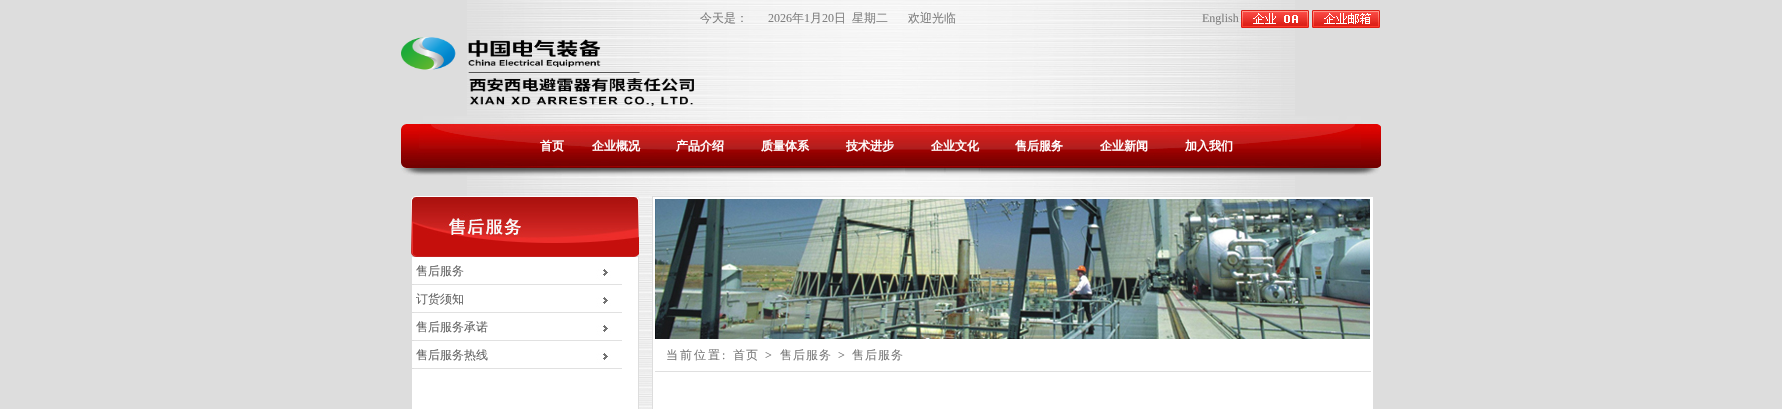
void draw(SkCanvas* canvas) {
    SkPaint paint;
    paint.setAntiAlias(true);
    auto face = [&](const char* family, int weight, float size, bool italic = false) {
        SkFontStyle style(weight, SkFontStyle::kNormal_Width,
            italic ? SkFontStyle::kItalic_Slant : SkFontStyle::kUpright_Slant);
        SkFont result(fontMgr->matchFamilyStyle(family, style), size);
        result.setSubpixel(true);
        return result;
    };
    auto write = [&](const char* s, float x, float y, const SkFont& font, SkColor color) {
        SkPaint ink(SkColor4f::FromColor(color));
        ink.setAntiAlias(true);
        canvas->drawString(s, x, y, font, ink);
    };
    auto writeSpaced = [&](const char* s, float x, float y, const SkFont& font, const SkPaint& ink, float letter, float word) {
        std::vector<SkGlyphID> glyphs(font.countText(s, strlen(s), SkTextEncoding::kUTF8));
        std::vector<float> xs(glyphs.size());
        font.textToGlyphs(s, strlen(s), SkTextEncoding::kUTF8, glyphs);
        font.getXPos(glyphs, xs, x);
        float extra = 0;
        for (size_t i = 0; i < glyphs.size(); i++) {
            xs[i] += extra;
            extra += letter + word * (glyphs[i] == font.unicharToGlyph(' '));
        }
        canvas->drawTextBlob(SkTextBlob::MakeFromPosHGlyphs(glyphs, xs, y, font), 0, 0, ink);
    };
    auto block = [&](float x, float y, float w, float h, SkColor color) {
        SkPaint ink(SkColor4f::FromColor(color));
        ink.setAntiAlias(true);
        canvas->drawRect(SkRect::MakeXYWH(x, y, w, h), ink);
    };
    auto paste = [&](const char* path, float x, float y, float w, float h) {
        auto image = SkImages::DeferredFromEncodedData(SkData::MakeFromFileName(path));
        canvas->drawImageRect(image, SkRect::MakeXYWH(x, y, w, h), SkSamplingOptions());
    };
    canvas->clear(SkColorSetRGB(221, 221, 221));
    paste("pic1.png", 467, 0, 828, 37);
    auto kFont1 = face("WenQuanYi Zen Hei", 500, 12);
    write("今天是：", 700, 22, kFont1, SkColorSetRGB(128, 128, 128));
    auto kFont2 = face("Liberation Serif", 400, 12);
    write("2026", 768, 22, kFont2, SkColorSetRGB(128, 128, 128));
    write("年", 792, 22, kFont1, SkColorSetRGB(128, 128, 128));
    write("1", 804, 22, kFont2, SkColorSetRGB(128, 128, 128));
    write("月", 810, 22, kFont1, SkColorSetRGB(128, 128, 128));
    write("20", 822, 22, kFont2, SkColorSetRGB(128, 128, 128));
    write("日", 834, 22, kFont1, SkColorSetRGB(128, 128, 128));
    write("星期二", 852, 22, kFont1, SkColorSetRGB(128, 128, 128));
    write("欢迎光临", 908, 22, kFont1, SkColorSetRGB(128, 128, 128));
    write("English", 1202, 22, kFont2, SkColorSetRGB(128, 128, 128));
    paste("pic2.png", 1241, 10, 68, 18);
    paste("pic3.png", 1312, 10, 68, 18);
    paste("pic4.png", 467, 37, 828, 69);
    paste("pic5.png", 401, 37, 293, 69);
    paste("pic6.png", 467, 106, 828, 10);
    paste("pic7.png", 401, 116, 980, 60);
    auto kFont3 = face("WenQuanYi Zen Hei", 700, 12);
    write("首页", 540, 150, kFont3, SK_ColorWHITE);
    write("企业概况", 592, 150, kFont3, SK_ColorWHITE);
    write("产品介绍", 676, 150, kFont3, SK_ColorWHITE);
    write("质量体系", 761, 150, kFont3, SK_ColorWHITE);
    write("技术进步", 846, 150, kFont3, SK_ColorWHITE);
    write("企业文化", 931, 150, kFont3, SK_ColorWHITE);
    write("售后服务", 1015, 150, kFont3, SK_ColorWHITE);
    write("企业新闻", 1100, 150, kFont3, SK_ColorWHITE);
    write("加入我们", 1185, 150, kFont3, SK_ColorWHITE);
    paste("pic8.png", 467, 176, 828, 20);
    paste("pic9.png", 639, 196, 13, 213);
    paste("pic10.png", 411, 196, 228, 61);
    block(412, 257, 226, 152, SK_ColorWHITE);
    paste("pic11.png", 412, 269, 210, 16);
    write("售后服务", 416, 275, kFont1, SkColorSetRGB(99, 99, 99));
    paste("pic11.png", 412, 297, 210, 16);
    write("订货须知", 416, 303, kFont1, SkColorSetRGB(99, 99, 99));
    paste("pic11.png", 412, 325, 210, 16);
    write("售后服务承诺", 416, 331, kFont1, SkColorSetRGB(99, 99, 99));
    paste("pic11.png", 412, 353, 210, 16);
    write("售后服务热线", 416, 359, kFont1, SkColorSetRGB(99, 99, 99));
    block(653, 197, 720, 212, SK_ColorWHITE);
    paste("pic12.png", 655, 199, 715, 140);
    paint.setColor(SkColorSetRGB(121, 121, 121));
    writeSpaced("当前位置", 666, 359, kFont1, paint, 2, 0);
    writeSpaced(":", 722, 359, kFont2, paint, 2, 0);
    writeSpaced("首页", 733, 359, kFont1, paint, 1, 0);
    writeSpaced(">", 765, 359, kFont2, paint, 2, 0);
    writeSpaced("售后服务", 780, 359, kFont1, paint, 1, 0);
    writeSpaced(">", 838, 359, kFont2, paint, 2, 0);
    writeSpaced("售后服务", 852, 359, kFont1, paint, 1, 0);
    block(655, 371, 716, 1, SkColorSetRGB(223, 223, 223));
}
